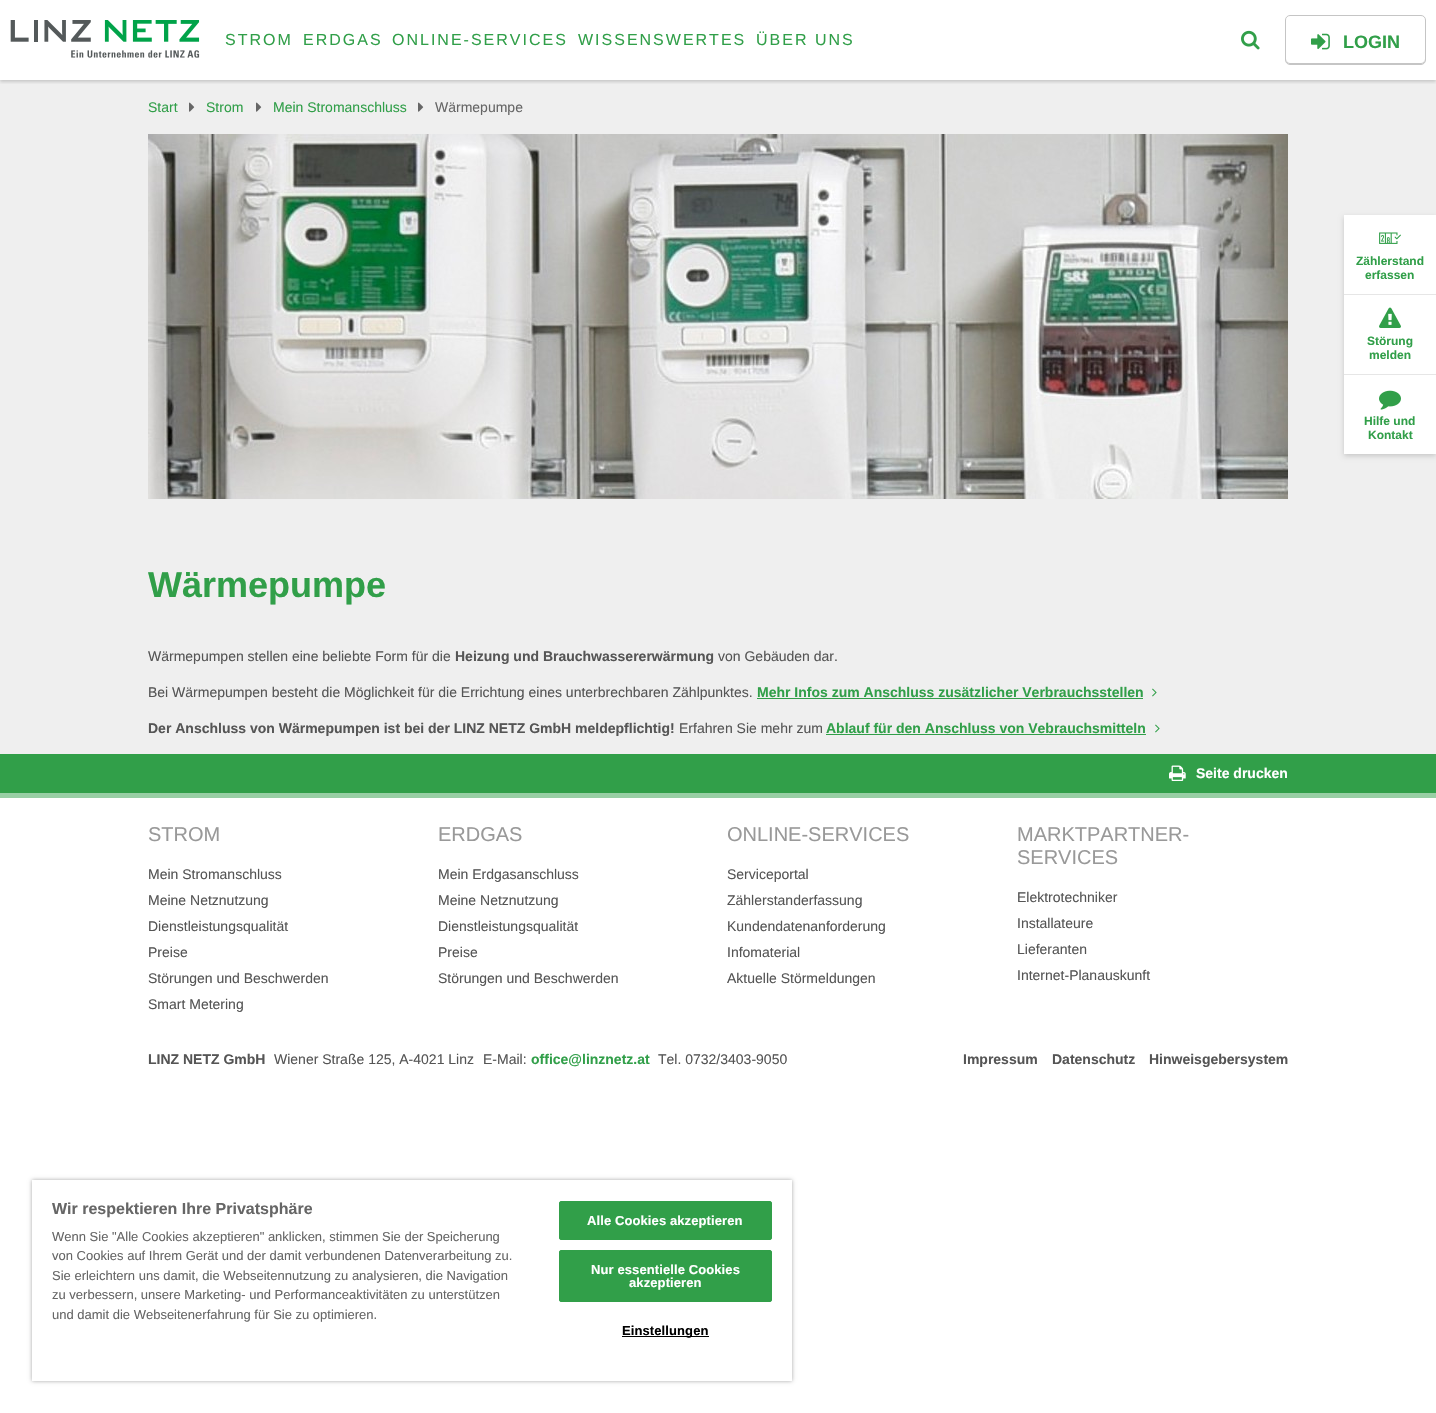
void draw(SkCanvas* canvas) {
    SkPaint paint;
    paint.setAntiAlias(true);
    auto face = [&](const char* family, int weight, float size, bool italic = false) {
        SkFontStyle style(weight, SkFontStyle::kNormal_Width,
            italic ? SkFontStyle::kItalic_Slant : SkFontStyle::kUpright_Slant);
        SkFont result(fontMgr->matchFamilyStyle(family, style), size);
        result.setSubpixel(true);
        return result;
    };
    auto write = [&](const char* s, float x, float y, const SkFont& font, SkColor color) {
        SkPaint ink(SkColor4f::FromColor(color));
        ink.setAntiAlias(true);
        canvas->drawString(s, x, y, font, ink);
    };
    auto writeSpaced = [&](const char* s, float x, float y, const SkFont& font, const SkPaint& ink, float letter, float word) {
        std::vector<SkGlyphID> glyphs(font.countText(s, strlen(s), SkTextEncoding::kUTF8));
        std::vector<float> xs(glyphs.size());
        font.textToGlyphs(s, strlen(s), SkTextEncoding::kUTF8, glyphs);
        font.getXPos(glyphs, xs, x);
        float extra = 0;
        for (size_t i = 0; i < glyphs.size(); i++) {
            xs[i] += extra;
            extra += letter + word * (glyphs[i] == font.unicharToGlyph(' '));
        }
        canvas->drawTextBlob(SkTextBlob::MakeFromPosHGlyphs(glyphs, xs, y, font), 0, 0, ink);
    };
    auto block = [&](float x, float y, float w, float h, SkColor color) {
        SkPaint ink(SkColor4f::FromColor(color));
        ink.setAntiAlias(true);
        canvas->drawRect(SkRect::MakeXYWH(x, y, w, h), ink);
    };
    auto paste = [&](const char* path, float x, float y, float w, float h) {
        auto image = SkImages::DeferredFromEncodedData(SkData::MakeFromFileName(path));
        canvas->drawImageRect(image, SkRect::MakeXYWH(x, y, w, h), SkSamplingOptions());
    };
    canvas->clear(SK_ColorWHITE);
    block(0, 80, 1436, 674, SkColorSetRGB(239, 239, 239));
    canvas->save();
    canvas->clipRect(SkRect::MakeXYWH(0, 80, 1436, 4));
    paint.setColor(SkColorSetARGB(41, 0, 0, 0));
    paint.setMaskFilter(SkMaskFilter::MakeBlur(kNormal_SkBlurStyle, 1.5f));
    canvas->drawRect(SkRect::MakeXYWH(0, 2, 1436, 80), paint);
    paint.setMaskFilter(nullptr);
    canvas->restore();
    paste("pic1.png", 10, 20, 190, 38);
    auto kFont1 = face("Liberation Sans", 400, 16);
    paint.setColor(SkColorSetRGB(49, 159, 73));
    writeSpaced("STROM", 225, 45, kFont1, paint, 2, 0);
    writeSpaced("ERDGAS", 303, 45, kFont1, paint, 2, 0);
    writeSpaced("ONLINE-SERVICES", 392, 45, kFont1, paint, 2, 0);
    writeSpaced("WISSENSWERTES", 578, 45, kFont1, paint, 2, 0);
    writeSpaced("ÜBER UNS", 756, 45, kFont1, paint, 2, 0);
    paste("pic2.png", 1241, 30, 19, 20);
    paint.setColor(SkColorSetRGB(197, 197, 197));
    canvas->drawPath(SkPathBuilder().moveTo(1286, 59).lineTo(1286, 60).cubicTo(1286, 62, 1288, 64, 1290, 64).lineTo(1421, 64).cubicTo(1423, 64, 1425, 62, 1425, 60).lineTo(1425, 59).cubicTo(1425, 61, 1423, 63, 1421, 63).lineTo(1290, 63).cubicTo(1288, 63, 1286, 61, 1286, 59).close().detach(), paint);
    paint.setStyle(SkPaint::kStroke_Style);
    paint.setStrokeWidth(1);
    canvas->drawRoundRect(SkRect::MakeXYWH(1285.5f, 15.5f, 140, 49), 4.5f, 4.5f, paint);
    paste("pic3.png", 1311, 33, 19, 17);
    auto kFont2 = face("Liberation Sans", 700, 18);
    write("LOGIN", 1343, 48, kFont2, SkColorSetRGB(49, 159, 73));
    auto kFont3 = face("Liberation Sans", 400, 14);
    write("Start", 148, 112, kFont3, SkColorSetRGB(49, 159, 73));
    paste("pic4.png", 189, 102, 6, 10);
    write("Strom", 206, 112, kFont3, SkColorSetRGB(49, 159, 73));
    paste("pic4.png", 256, 102, 6, 10);
    write("Mein Stromanschluss", 273, 112, kFont3, SkColorSetRGB(49, 159, 73));
    paste("pic4.png", 418, 102, 6, 10);
    write("Wärmepumpe", 435, 112, kFont3, SkColorSetRGB(102, 102, 102));
    paste("pic5.png", 148, 134, 1140, 365);
    auto kFont4 = face("Liberation Sans", 700, 36);
    write("Wärmepumpe", 148, 597, kFont4, SkColorSetRGB(49, 159, 73));
    write("Wärmepumpen stellen eine beliebte Form für die", 148, 661, kFont3, SkColorSetRGB(85, 85, 85));
    auto kFont5 = face("Liberation Sans", 700, 14);
    write("Heizung und Brauchwassererwärmung", 455, 661, kFont5, SkColorSetRGB(85, 85, 85));
    write("von Gebäuden dar.", 718, 661, kFont3, SkColorSetRGB(85, 85, 85));
    write("Bei Wärmepumpen besteht die Möglichkeit für die Errichtung eines unterbrechbaren Zählpunktes.", 148, 697, kFont3, SkColorSetRGB(85, 85, 85));
    write("Mehr Infos zum Anschluss zusätzlicher Verbrauchsstellen", 757, 697, kFont5, SkColorSetRGB(49, 159, 73));
    block(757, 698, 386, 1, SkColorSetRGB(49, 159, 73));
    paste("pic6.png", 1152, 688, 5, 9);
    write("Der Anschluss von Wärmepumpen ist bei der LINZ NETZ GmbH meldepflichtig!", 148, 733, kFont5, SkColorSetRGB(85, 85, 85));
    write("Erfahren Sie mehr zum", 679, 733, kFont3, SkColorSetRGB(85, 85, 85));
    write("Ablauf für den Anschluss von Vebrauchsmitteln", 826, 733, kFont5, SkColorSetRGB(49, 159, 73));
    block(826, 734, 320, 1, SkColorSetRGB(49, 159, 73));
    paste("pic6.png", 1155, 724, 5, 9);
    paint.setStyle(SkPaint::kFill_Style);
    paint.setColor(SkColorSetARGB(43, 0, 0, 0));
    paint.setMaskFilter(SkMaskFilter::MakeBlur(kNormal_SkBlurStyle, 2.5f));
    canvas->drawRect(SkRect::MakeXYWH(1344, 217, 92, 239), paint);
    paint.setMaskFilter(nullptr);
    block(1344, 215, 92, 239, SK_ColorWHITE);
    block(1344, 294, 92, 1, SkColorSetRGB(230, 230, 230));
    paste("pic7.png", 1379, 232, 22, 12);
    auto kFont6 = face("Liberation Sans", 700, 12);
    write("Zählerstand", 1356, 265, kFont6, SkColorSetRGB(49, 159, 73));
    write("erfassen", 1365, 279, kFont6, SkColorSetRGB(49, 159, 73));
    block(1344, 374, 92, 1, SkColorSetRGB(230, 230, 230));
    paste("pic8.png", 1379, 307, 22, 21);
    write("Störung", 1367, 345, kFont6, SkColorSetRGB(49, 159, 73));
    write("melden", 1369, 359, kFont6, SkColorSetRGB(49, 159, 73));
    paste("pic9.png", 1379, 390, 22, 20);
    write("Hilfe und", 1364, 425, kFont6, SkColorSetRGB(49, 159, 73));
    write("Kontakt", 1368, 439, kFont6, SkColorSetRGB(49, 159, 73));
    block(0, 754, 1436, 39, SkColorSetRGB(49, 159, 73));
    block(0, 793, 1436, 5, SkColorSetRGB(152, 207, 164));
    paste("pic10.png", 1169, 765, 17, 16);
    write("Seite drucken", 1196, 778, kFont5, SK_ColorWHITE);
    auto kFont7 = face("Liberation Sans", 400, 20);
    write("STROM", 148, 841, kFont7, SkColorSetRGB(153, 153, 153));
    write("Mein Stromanschluss", 148, 879, kFont3, SkColorSetRGB(85, 85, 85));
    write("Meine Netznutzung", 148, 905, kFont3, SkColorSetRGB(85, 85, 85));
    write("Dienstleistungsqualität", 148, 931, kFont3, SkColorSetRGB(85, 85, 85));
    write("Preise", 148, 957, kFont3, SkColorSetRGB(85, 85, 85));
    write("Störungen und Beschwerden", 148, 983, kFont3, SkColorSetRGB(85, 85, 85));
    write("Smart Metering", 148, 1009, kFont3, SkColorSetRGB(85, 85, 85));
    write("ERDGAS", 438, 841, kFont7, SkColorSetRGB(153, 153, 153));
    write("Mein Erdgasanschluss", 438, 879, kFont3, SkColorSetRGB(85, 85, 85));
    write("Meine Netznutzung", 438, 905, kFont3, SkColorSetRGB(85, 85, 85));
    write("Dienstleistungsqualität", 438, 931, kFont3, SkColorSetRGB(85, 85, 85));
    write("Preise", 438, 957, kFont3, SkColorSetRGB(85, 85, 85));
    write("Störungen und Beschwerden", 438, 983, kFont3, SkColorSetRGB(85, 85, 85));
    write("ONLINE-SERVICES", 727, 841, kFont7, SkColorSetRGB(153, 153, 153));
    write("Serviceportal", 727, 879, kFont3, SkColorSetRGB(85, 85, 85));
    write("Zählerstanderfassung", 727, 905, kFont3, SkColorSetRGB(85, 85, 85));
    write("Kundendatenanforderung", 727, 931, kFont3, SkColorSetRGB(85, 85, 85));
    write("Infomaterial", 727, 957, kFont3, SkColorSetRGB(85, 85, 85));
    write("Aktuelle Störmeldungen", 727, 983, kFont3, SkColorSetRGB(85, 85, 85));
    write("MARKTPARTNER-", 1017, 841, kFont7, SkColorSetRGB(153, 153, 153));
    write("SERVICES", 1017, 864, kFont7, SkColorSetRGB(153, 153, 153));
    write("Elektrotechniker", 1017, 902, kFont3, SkColorSetRGB(85, 85, 85));
    write("Installateure", 1017, 928, kFont3, SkColorSetRGB(85, 85, 85));
    write("Lieferanten", 1017, 954, kFont3, SkColorSetRGB(85, 85, 85));
    write("Internet-Planauskunft", 1017, 980, kFont3, SkColorSetRGB(85, 85, 85));
    write("LINZ NETZ GmbH", 148, 1064, kFont5, SkColorSetRGB(85, 85, 85));
    write("Wiener Straße 125, A-4021 Linz", 274, 1064, kFont3, SkColorSetRGB(85, 85, 85));
    write("E-Mail:", 483, 1064, kFont3, SkColorSetRGB(85, 85, 85));
    write("office@linznetz.at", 531, 1064, kFont5, SkColorSetRGB(49, 159, 73));
    write("Tel. 0732/3403-9050", 658, 1064, kFont3, SkColorSetRGB(85, 85, 85));
    write("Impressum", 963, 1064, kFont5, SkColorSetRGB(85, 85, 85));
    write("Datenschutz", 1052, 1064, kFont5, SkColorSetRGB(85, 85, 85));
    write("Hinweisgebersystem", 1149, 1064, kFont5, SkColorSetRGB(85, 85, 85));
    canvas->save();
    canvas->clipPath(SkPathBuilder(SkPathFillType::kEvenOdd).moveTo(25, 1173).lineTo(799, 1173).lineTo(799, 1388).lineTo(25, 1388).close().moveTo(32, 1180).lineTo(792, 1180).lineTo(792, 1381).lineTo(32, 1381).close().detach(), true);
    paint.setColor(SkColorSetARGB(89, 0, 0, 0));
    paint.setMaskFilter(SkMaskFilter::MakeBlur(kNormal_SkBlurStyle, 2));
    canvas->drawRect(SkRect::MakeXYWH(32, 1180, 760, 201), paint);
    paint.setMaskFilter(nullptr);
    canvas->restore();
    auto kFont8 = face("Liberation Sans", 700, 16);
    write("Wir respektieren Ihre Privatsphäre", 52, 1214, kFont8, SkColorSetRGB(102, 102, 102));
    auto kFont9 = face("Liberation Sans", 400, 13);
    write("Wenn Sie \"Alle Cookies akzeptieren\" anklicken, stimmen Sie der Speicherung", 52, 1241, kFont9, SkColorSetRGB(102, 102, 102));
    write("von Cookies auf Ihrem Gerät und der damit verbundenen Datenverarbeitung zu.", 52, 1260, kFont9, SkColorSetRGB(102, 102, 102));
    write("Sie erleichtern uns damit, die Webseitennutzung zu analysieren, die Navigation", 52, 1280, kFont9, SkColorSetRGB(102, 102, 102));
    write("zu verbessern, unsere Marketing- und Performanceaktivitäten zu unterstützen", 52, 1299, kFont9, SkColorSetRGB(102, 102, 102));
    write("und damit die Webseitenerfahrung für Sie zu optimieren.", 52, 1319, kFont9, SkColorSetRGB(102, 102, 102));
    paint.setColor(SkColorSetRGB(49, 159, 73));
    canvas->drawRoundRect(SkRect::MakeXYWH(559.5f, 1201.5f, 212, 38), 1.5f, 1.5f, paint);
    paint.setStyle(SkPaint::kStroke_Style);
    canvas->drawRoundRect(SkRect::MakeXYWH(559.5f, 1201.5f, 212, 38), 1.5f, 1.5f, paint);
    auto kFont10 = face("Liberation Sans", 700, 13);
    paint.setStyle(SkPaint::kFill_Style);
    paint.setColor(SK_ColorWHITE);
    writeSpaced("Alle Cookies akzeptieren", 587, 1225, kFont10, paint, 0.1f, 0);
    paint.setColor(SkColorSetRGB(49, 159, 73));
    canvas->drawRoundRect(SkRect::MakeXYWH(559.5f, 1250.5f, 212, 51), 1.5f, 1.5f, paint);
    paint.setStyle(SkPaint::kStroke_Style);
    canvas->drawRoundRect(SkRect::MakeXYWH(559.5f, 1250.5f, 212, 51), 1.5f, 1.5f, paint);
    paint.setStyle(SkPaint::kFill_Style);
    paint.setColor(SK_ColorWHITE);
    writeSpaced("Nur essentielle Cookies", 591, 1274, kFont10, paint, 0.1f, 0);
    writeSpaced("akzeptieren", 629, 1287, kFont10, paint, 0.1f, 0);
    block(622, 1336, 87, 1, SK_ColorBLACK);
    paint.setColor(SK_ColorBLACK);
    writeSpaced("Einstellungen", 622, 1335, kFont10, paint, 0.1f, 0);
}
